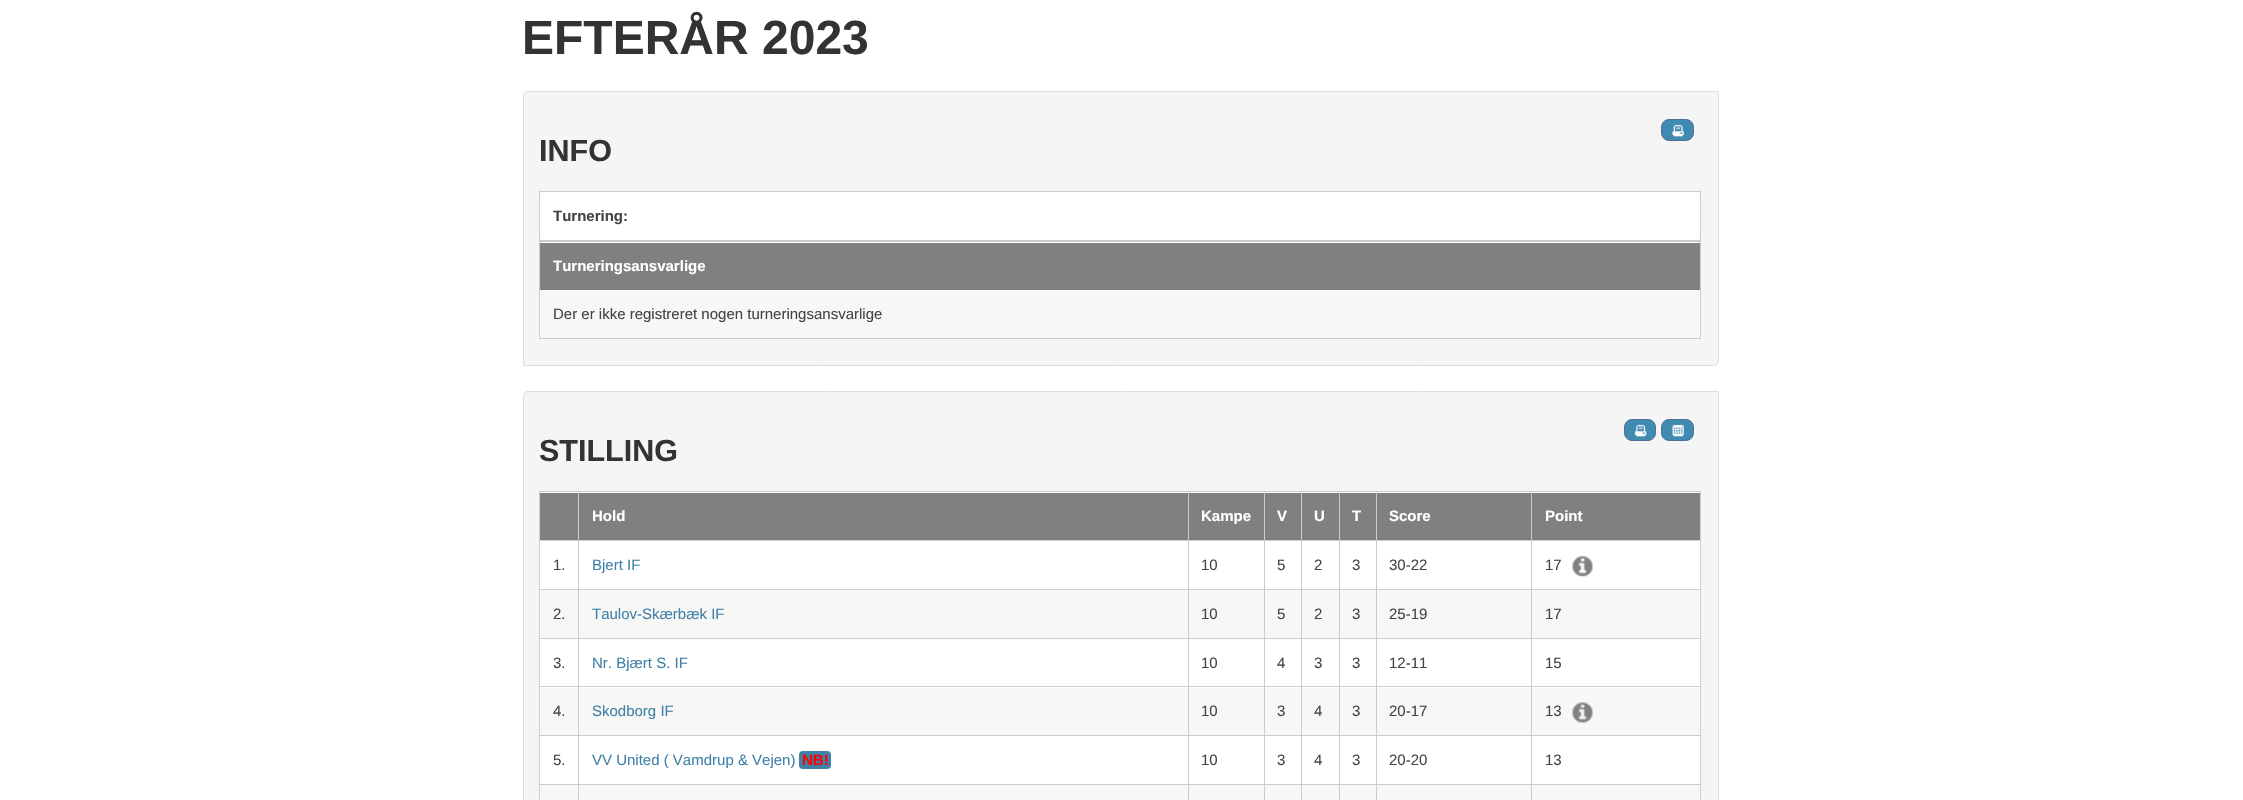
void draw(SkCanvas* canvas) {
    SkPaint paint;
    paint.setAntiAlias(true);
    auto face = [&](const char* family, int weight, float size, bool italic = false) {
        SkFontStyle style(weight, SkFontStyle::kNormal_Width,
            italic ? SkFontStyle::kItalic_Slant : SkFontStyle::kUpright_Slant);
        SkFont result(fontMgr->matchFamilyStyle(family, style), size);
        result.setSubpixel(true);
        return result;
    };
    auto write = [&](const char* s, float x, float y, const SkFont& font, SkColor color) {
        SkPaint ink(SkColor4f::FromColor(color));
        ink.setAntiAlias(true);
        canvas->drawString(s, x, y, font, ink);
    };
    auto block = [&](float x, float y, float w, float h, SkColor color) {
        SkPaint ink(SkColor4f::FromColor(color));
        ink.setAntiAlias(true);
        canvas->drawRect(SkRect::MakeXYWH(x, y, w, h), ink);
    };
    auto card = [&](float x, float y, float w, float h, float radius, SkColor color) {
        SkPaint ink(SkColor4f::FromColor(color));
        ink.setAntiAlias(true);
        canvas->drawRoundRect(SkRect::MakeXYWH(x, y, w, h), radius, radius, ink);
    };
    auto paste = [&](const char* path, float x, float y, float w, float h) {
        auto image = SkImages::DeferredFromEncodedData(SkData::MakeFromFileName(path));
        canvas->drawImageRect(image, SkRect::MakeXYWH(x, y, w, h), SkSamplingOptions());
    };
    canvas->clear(SK_ColorWHITE);
    auto kFont1 = face("Liberation Sans", 700, 48);
    write("EFTERÅR 2023", 522, 54, kFont1, SkColorSetRGB(51, 51, 51));
    paint.setColor(SkColorSetRGB(245, 245, 245));
    canvas->drawPath(SkPathBuilder().moveTo(528, 91.5f).lineTo(1718.5f, 91.5f).lineTo(1718.5f, 361).cubicTo(1718.5f, 363.5f, 1716.5f, 365.5f, 1714, 365.5f).lineTo(523.5f, 365.5f).lineTo(523.5f, 96).cubicTo(523.5f, 93.5f, 525.5f, 91.5f, 528, 91.5f).close().detach(), paint);
    paint.setStyle(SkPaint::kStroke_Style);
    paint.setStrokeWidth(1);
    paint.setColor(SkColorSetRGB(221, 221, 221));
    canvas->drawPath(SkPathBuilder().moveTo(528, 91.5f).lineTo(1718.5f, 91.5f).lineTo(1718.5f, 361).cubicTo(1718.5f, 363.5f, 1716.5f, 365.5f, 1714, 365.5f).lineTo(523.5f, 365.5f).lineTo(523.5f, 96).cubicTo(523.5f, 93.5f, 525.5f, 91.5f, 528, 91.5f).close().detach(), paint);
    paint.setStyle(SkPaint::kFill_Style);
    paint.setColor(SkColorSetRGB(64, 137, 177));
    canvas->drawRoundRect(SkRect::MakeXYWH(1661.5f, 119.5f, 32, 21), 7.5f, 7.5f, paint);
    paint.setStyle(SkPaint::kStroke_Style);
    paint.setColor(SkColorSetRGB(78, 111, 150));
    canvas->drawRoundRect(SkRect::MakeXYWH(1661.5f, 119.5f, 32, 21), 7.5f, 7.5f, paint);
    paste("pic1.png", 1672, 124, 12, 13);
    auto kFont2 = face("Liberation Sans", 700, 30.5f);
    write("INFO", 539, 161, kFont2, SkColorSetRGB(51, 51, 51));
    card(539, 191, 1162, 50, 8, SK_ColorWHITE);
    block(539, 191, 1162, 1, SkColorSetRGB(204, 204, 204));
    block(1700, 191, 1, 50, SkColorSetRGB(204, 204, 204));
    block(539, 240, 1162, 1, SkColorSetRGB(204, 204, 204));
    block(539, 191, 1, 50, SkColorSetRGB(204, 204, 204));
    auto kFont3 = face("Liberation Sans", 700, 15);
    write("Turnering:", 553, 221, kFont3, SkColorSetRGB(68, 68, 68));
    card(539, 241, 1162, 98, 8, SK_ColorWHITE);
    block(539, 241, 1162, 1, SkColorSetRGB(204, 204, 204));
    block(1700, 241, 1, 98, SkColorSetRGB(204, 204, 204));
    block(539, 338, 1162, 1, SkColorSetRGB(204, 204, 204));
    block(539, 241, 1, 98, SkColorSetRGB(204, 204, 204));
    block(540, 243, 1160, 47, SkColorSetRGB(128, 128, 128));
    write("Turneringsansvarlige", 553, 271, kFont3, SK_ColorWHITE);
    block(540, 290, 1160, 48, SkColorSetRGB(247, 247, 246));
    auto kFont4 = face("Liberation Sans", 400, 15);
    write("Der er ikke registreret nogen turneringsansvarlige", 553, 319, kFont4, SkColorSetRGB(68, 68, 68));
    paint.setStyle(SkPaint::kFill_Style);
    paint.setColor(SkColorSetRGB(245, 245, 245));
    canvas->drawPath(SkPathBuilder().moveTo(528, 391.5f).lineTo(1718.5f, 391.5f).lineTo(1718.5f, 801).cubicTo(1718.5f, 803.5f, 1716.5f, 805.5f, 1714, 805.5f).lineTo(523.5f, 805.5f).lineTo(523.5f, 396).cubicTo(523.5f, 393.5f, 525.5f, 391.5f, 528, 391.5f).close().detach(), paint);
    paint.setStyle(SkPaint::kStroke_Style);
    paint.setColor(SkColorSetRGB(221, 221, 221));
    canvas->drawPath(SkPathBuilder().moveTo(528, 391.5f).lineTo(1718.5f, 391.5f).lineTo(1718.5f, 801).cubicTo(1718.5f, 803.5f, 1716.5f, 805.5f, 1714, 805.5f).lineTo(523.5f, 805.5f).lineTo(523.5f, 396).cubicTo(523.5f, 393.5f, 525.5f, 391.5f, 528, 391.5f).close().detach(), paint);
    paint.setStyle(SkPaint::kFill_Style);
    paint.setColor(SkColorSetRGB(64, 137, 177));
    canvas->drawRoundRect(SkRect::MakeXYWH(1624.5f, 419.5f, 31, 21), 7.5f, 7.5f, paint);
    paint.setStyle(SkPaint::kStroke_Style);
    paint.setColor(SkColorSetRGB(78, 111, 150));
    canvas->drawRoundRect(SkRect::MakeXYWH(1624.5f, 419.5f, 31, 21), 7.5f, 7.5f, paint);
    paste("pic2.png", 1634, 424, 13, 13);
    paint.setStyle(SkPaint::kFill_Style);
    paint.setColor(SkColorSetRGB(64, 137, 177));
    canvas->drawRoundRect(SkRect::MakeXYWH(1661.5f, 419.5f, 32, 21), 7.5f, 7.5f, paint);
    paint.setStyle(SkPaint::kStroke_Style);
    paint.setColor(SkColorSetRGB(78, 111, 150));
    canvas->drawRoundRect(SkRect::MakeXYWH(1661.5f, 419.5f, 32, 21), 7.5f, 7.5f, paint);
    paste("pic3.png", 1672, 424, 12, 13);
    write("STILLING", 539, 461, kFont2, SkColorSetRGB(51, 51, 51));
    card(539, 491, 1162, 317, 8, SK_ColorWHITE);
    block(539, 491, 1162, 1, SkColorSetRGB(204, 204, 204));
    block(1700, 491, 1, 309, SkColorSetRGB(204, 204, 204));
    block(539, 491, 1, 309, SkColorSetRGB(204, 204, 204));
    block(540, 493, 38, 47, SkColorSetRGB(128, 128, 128));
    block(579, 493, 609, 47, SkColorSetRGB(128, 128, 128));
    block(1531, 540, 170, 1, SkColorSetRGB(204, 204, 204));
    block(1531, 589, 170, 1, SkColorSetRGB(204, 204, 204));
    block(1377, 590, 323, 48, SkColorSetRGB(247, 247, 246));
    block(1531, 638, 170, 1, SkColorSetRGB(204, 204, 204));
    block(1531, 686, 170, 1, SkColorSetRGB(204, 204, 204));
    block(1377, 688, 323, 47, SkColorSetRGB(247, 247, 246));
    block(1531, 735, 170, 1, SkColorSetRGB(204, 204, 204));
    block(1531, 784, 170, 1, SkColorSetRGB(204, 204, 204));
    block(1377, 785, 323, 15, SkColorSetRGB(247, 247, 246));
    block(1531, 784, 1, 16, SkColorSetRGB(204, 204, 204));
    block(1376, 784, 157, 1, SkColorSetRGB(204, 204, 204));
    block(1531, 735, 1, 50, SkColorSetRGB(204, 204, 204));
    block(1376, 735, 157, 1, SkColorSetRGB(204, 204, 204));
    block(1531, 686, 1, 50, SkColorSetRGB(204, 204, 204));
    block(1376, 686, 157, 1, SkColorSetRGB(204, 204, 204));
    block(1531, 638, 1, 50, SkColorSetRGB(204, 204, 204));
    block(1376, 638, 157, 1, SkColorSetRGB(204, 204, 204));
    block(1531, 589, 1, 50, SkColorSetRGB(204, 204, 204));
    block(1376, 589, 157, 1, SkColorSetRGB(204, 204, 204));
    block(1531, 540, 1, 50, SkColorSetRGB(204, 204, 204));
    block(1376, 540, 157, 1, SkColorSetRGB(204, 204, 204));
    block(1376, 784, 1, 16, SkColorSetRGB(204, 204, 204));
    block(1339, 784, 39, 1, SkColorSetRGB(204, 204, 204));
    block(1376, 735, 1, 50, SkColorSetRGB(204, 204, 204));
    block(1339, 735, 39, 1, SkColorSetRGB(204, 204, 204));
    block(1376, 686, 1, 50, SkColorSetRGB(204, 204, 204));
    block(1339, 686, 39, 1, SkColorSetRGB(204, 204, 204));
    block(1376, 638, 1, 50, SkColorSetRGB(204, 204, 204));
    block(1339, 638, 39, 1, SkColorSetRGB(204, 204, 204));
    block(1376, 589, 1, 50, SkColorSetRGB(204, 204, 204));
    block(1339, 589, 39, 1, SkColorSetRGB(204, 204, 204));
    block(1376, 540, 1, 50, SkColorSetRGB(204, 204, 204));
    block(1339, 540, 39, 1, SkColorSetRGB(204, 204, 204));
    block(1339, 784, 1, 16, SkColorSetRGB(204, 204, 204));
    block(1301, 784, 39, 1, SkColorSetRGB(204, 204, 204));
    block(1339, 735, 1, 50, SkColorSetRGB(204, 204, 204));
    block(1301, 735, 39, 1, SkColorSetRGB(204, 204, 204));
    block(1339, 686, 1, 50, SkColorSetRGB(204, 204, 204));
    block(1301, 686, 39, 1, SkColorSetRGB(204, 204, 204));
    block(1339, 638, 1, 50, SkColorSetRGB(204, 204, 204));
    block(1301, 638, 39, 1, SkColorSetRGB(204, 204, 204));
    block(1339, 589, 1, 50, SkColorSetRGB(204, 204, 204));
    block(1301, 589, 39, 1, SkColorSetRGB(204, 204, 204));
    block(1339, 540, 1, 50, SkColorSetRGB(204, 204, 204));
    block(1301, 540, 39, 1, SkColorSetRGB(204, 204, 204));
    block(1301, 784, 1, 16, SkColorSetRGB(204, 204, 204));
    block(1264, 784, 39, 1, SkColorSetRGB(204, 204, 204));
    block(1301, 735, 1, 50, SkColorSetRGB(204, 204, 204));
    block(1264, 735, 39, 1, SkColorSetRGB(204, 204, 204));
    block(1301, 686, 1, 50, SkColorSetRGB(204, 204, 204));
    block(1264, 686, 39, 1, SkColorSetRGB(204, 204, 204));
    block(1301, 638, 1, 50, SkColorSetRGB(204, 204, 204));
    block(1264, 638, 39, 1, SkColorSetRGB(204, 204, 204));
    block(1301, 589, 1, 50, SkColorSetRGB(204, 204, 204));
    block(1264, 589, 39, 1, SkColorSetRGB(204, 204, 204));
    block(1301, 540, 1, 50, SkColorSetRGB(204, 204, 204));
    block(1264, 540, 39, 1, SkColorSetRGB(204, 204, 204));
    block(1264, 784, 1, 16, SkColorSetRGB(204, 204, 204));
    block(1188, 784, 77, 1, SkColorSetRGB(204, 204, 204));
    block(1264, 735, 1, 50, SkColorSetRGB(204, 204, 204));
    block(1188, 735, 77, 1, SkColorSetRGB(204, 204, 204));
    block(1264, 686, 1, 50, SkColorSetRGB(204, 204, 204));
    block(1188, 686, 77, 1, SkColorSetRGB(204, 204, 204));
    block(1264, 638, 1, 50, SkColorSetRGB(204, 204, 204));
    block(1188, 638, 77, 1, SkColorSetRGB(204, 204, 204));
    block(1264, 589, 1, 50, SkColorSetRGB(204, 204, 204));
    block(1188, 589, 77, 1, SkColorSetRGB(204, 204, 204));
    block(1264, 540, 1, 50, SkColorSetRGB(204, 204, 204));
    block(1188, 540, 77, 1, SkColorSetRGB(204, 204, 204));
    block(1188, 784, 1, 16, SkColorSetRGB(204, 204, 204));
    block(578, 784, 611, 1, SkColorSetRGB(204, 204, 204));
    block(1188, 735, 1, 50, SkColorSetRGB(204, 204, 204));
    block(578, 735, 611, 1, SkColorSetRGB(204, 204, 204));
    block(1188, 686, 1, 50, SkColorSetRGB(204, 204, 204));
    block(578, 686, 611, 1, SkColorSetRGB(204, 204, 204));
    block(1188, 638, 1, 50, SkColorSetRGB(204, 204, 204));
    block(578, 638, 611, 1, SkColorSetRGB(204, 204, 204));
    block(1188, 589, 1, 50, SkColorSetRGB(204, 204, 204));
    block(578, 589, 611, 1, SkColorSetRGB(204, 204, 204));
    block(1188, 540, 1, 50, SkColorSetRGB(204, 204, 204));
    block(578, 540, 611, 1, SkColorSetRGB(204, 204, 204));
    block(578, 784, 1, 16, SkColorSetRGB(204, 204, 204));
    block(539, 784, 40, 1, SkColorSetRGB(204, 204, 204));
    block(578, 735, 1, 50, SkColorSetRGB(204, 204, 204));
    block(539, 735, 40, 1, SkColorSetRGB(204, 204, 204));
    block(578, 686, 1, 50, SkColorSetRGB(204, 204, 204));
    block(539, 686, 40, 1, SkColorSetRGB(204, 204, 204));
    block(578, 638, 1, 50, SkColorSetRGB(204, 204, 204));
    block(539, 638, 40, 1, SkColorSetRGB(204, 204, 204));
    block(578, 589, 1, 50, SkColorSetRGB(204, 204, 204));
    block(539, 589, 40, 1, SkColorSetRGB(204, 204, 204));
    block(578, 540, 1, 50, SkColorSetRGB(204, 204, 204));
    block(539, 540, 40, 1, SkColorSetRGB(204, 204, 204));
    block(578, 491, 1, 50, SkColorSetRGB(204, 204, 204));
    write("Hold", 592, 521, kFont3, SK_ColorWHITE);
    block(1189, 493, 75, 47, SkColorSetRGB(128, 128, 128));
    block(1188, 491, 1, 50, SkColorSetRGB(204, 204, 204));
    write("Kampe", 1201, 521, kFont3, SK_ColorWHITE);
    block(1265, 493, 36, 47, SkColorSetRGB(128, 128, 128));
    block(1264, 491, 1, 50, SkColorSetRGB(204, 204, 204));
    write("V", 1277, 521, kFont3, SK_ColorWHITE);
    block(1302, 493, 37, 47, SkColorSetRGB(128, 128, 128));
    block(1301, 491, 1, 50, SkColorSetRGB(204, 204, 204));
    write("U", 1314, 521, kFont3, SK_ColorWHITE);
    block(1340, 493, 36, 47, SkColorSetRGB(128, 128, 128));
    block(1339, 491, 1, 50, SkColorSetRGB(204, 204, 204));
    write("T", 1352, 521, kFont3, SK_ColorWHITE);
    block(1377, 493, 323, 47, SkColorSetRGB(128, 128, 128));
    block(1376, 491, 1, 50, SkColorSetRGB(204, 204, 204));
    write("Score", 1389, 521, kFont3, SK_ColorWHITE);
    block(1531, 491, 1, 50, SkColorSetRGB(204, 204, 204));
    write("Point", 1545, 521, kFont3, SK_ColorWHITE);
    write("1.", 553, 570, kFont4, SkColorSetRGB(68, 68, 68));
    write("Bjert IF", 592, 570, kFont4, SkColorSetRGB(65, 129, 168));
    write("10", 1201, 570, kFont4, SkColorSetRGB(68, 68, 68));
    write("5", 1277, 570, kFont4, SkColorSetRGB(68, 68, 68));
    write("2", 1314, 570, kFont4, SkColorSetRGB(68, 68, 68));
    write("3", 1352, 570, kFont4, SkColorSetRGB(68, 68, 68));
    write("30-22", 1389, 570, kFont4, SkColorSetRGB(68, 68, 68));
    write("17", 1545, 570, kFont4, SkColorSetRGB(68, 68, 68));
    paste("pic4.png", 1572, 556, 21, 21);
    block(540, 590, 38, 48, SkColorSetRGB(247, 247, 246));
    write("2.", 553, 619, kFont4, SkColorSetRGB(68, 68, 68));
    block(579, 590, 609, 48, SkColorSetRGB(247, 247, 246));
    write("Taulov-Skærbæk IF", 592, 619, kFont4, SkColorSetRGB(65, 129, 168));
    block(1189, 590, 75, 48, SkColorSetRGB(247, 247, 246));
    write("10", 1201, 619, kFont4, SkColorSetRGB(68, 68, 68));
    block(1265, 590, 36, 48, SkColorSetRGB(247, 247, 246));
    write("5", 1277, 619, kFont4, SkColorSetRGB(68, 68, 68));
    block(1302, 590, 37, 48, SkColorSetRGB(247, 247, 246));
    write("2", 1314, 619, kFont4, SkColorSetRGB(68, 68, 68));
    block(1340, 590, 36, 48, SkColorSetRGB(247, 247, 246));
    write("3", 1352, 619, kFont4, SkColorSetRGB(68, 68, 68));
    write("25-19", 1389, 619, kFont4, SkColorSetRGB(68, 68, 68));
    write("17", 1545, 619, kFont4, SkColorSetRGB(68, 68, 68));
    write("3.", 553, 668, kFont4, SkColorSetRGB(68, 68, 68));
    write("Nr. Bjært S. IF", 592, 668, kFont4, SkColorSetRGB(65, 129, 168));
    write("10", 1201, 668, kFont4, SkColorSetRGB(68, 68, 68));
    write("4", 1277, 668, kFont4, SkColorSetRGB(68, 68, 68));
    write("3", 1314, 668, kFont4, SkColorSetRGB(68, 68, 68));
    write("3", 1352, 668, kFont4, SkColorSetRGB(68, 68, 68));
    write("12-11", 1389, 668, kFont4, SkColorSetRGB(68, 68, 68));
    write("15", 1545, 668, kFont4, SkColorSetRGB(68, 68, 68));
    block(540, 688, 38, 47, SkColorSetRGB(247, 247, 246));
    write("4.", 553, 716, kFont4, SkColorSetRGB(68, 68, 68));
    block(579, 688, 609, 47, SkColorSetRGB(247, 247, 246));
    write("Skodborg IF", 592, 716, kFont4, SkColorSetRGB(65, 129, 168));
    block(1189, 688, 75, 47, SkColorSetRGB(247, 247, 246));
    write("10", 1201, 716, kFont4, SkColorSetRGB(68, 68, 68));
    block(1265, 688, 36, 47, SkColorSetRGB(247, 247, 246));
    write("3", 1277, 716, kFont4, SkColorSetRGB(68, 68, 68));
    block(1302, 688, 37, 47, SkColorSetRGB(247, 247, 246));
    write("4", 1314, 716, kFont4, SkColorSetRGB(68, 68, 68));
    block(1340, 688, 36, 47, SkColorSetRGB(247, 247, 246));
    write("3", 1352, 716, kFont4, SkColorSetRGB(68, 68, 68));
    write("20-17", 1389, 716, kFont4, SkColorSetRGB(68, 68, 68));
    write("13", 1545, 716, kFont4, SkColorSetRGB(68, 68, 68));
    paste("pic5.png", 1572, 702, 21, 21);
    write("5.", 553, 765, kFont4, SkColorSetRGB(68, 68, 68));
    write("VV United ( Vamdrup & Vejen)", 592, 765, kFont4, SkColorSetRGB(65, 129, 168));
    card(799, 751, 32, 18, 4, SkColorSetRGB(65, 129, 168));
    write("NB!", 802, 765, kFont3, SkColorSetRGB(255, 0, 0));
    write("10", 1201, 765, kFont4, SkColorSetRGB(68, 68, 68));
    write("3", 1277, 765, kFont4, SkColorSetRGB(68, 68, 68));
    write("4", 1314, 765, kFont4, SkColorSetRGB(68, 68, 68));
    write("3", 1352, 765, kFont4, SkColorSetRGB(68, 68, 68));
    write("20-20", 1389, 765, kFont4, SkColorSetRGB(68, 68, 68));
    write("13", 1545, 765, kFont4, SkColorSetRGB(68, 68, 68));
    block(540, 785, 38, 15, SkColorSetRGB(247, 247, 246));
    block(579, 785, 609, 15, SkColorSetRGB(247, 247, 246));
    block(1189, 785, 75, 15, SkColorSetRGB(247, 247, 246));
    block(1265, 785, 36, 15, SkColorSetRGB(247, 247, 246));
    block(1302, 785, 37, 15, SkColorSetRGB(247, 247, 246));
    block(1340, 785, 36, 15, SkColorSetRGB(247, 247, 246));
}
